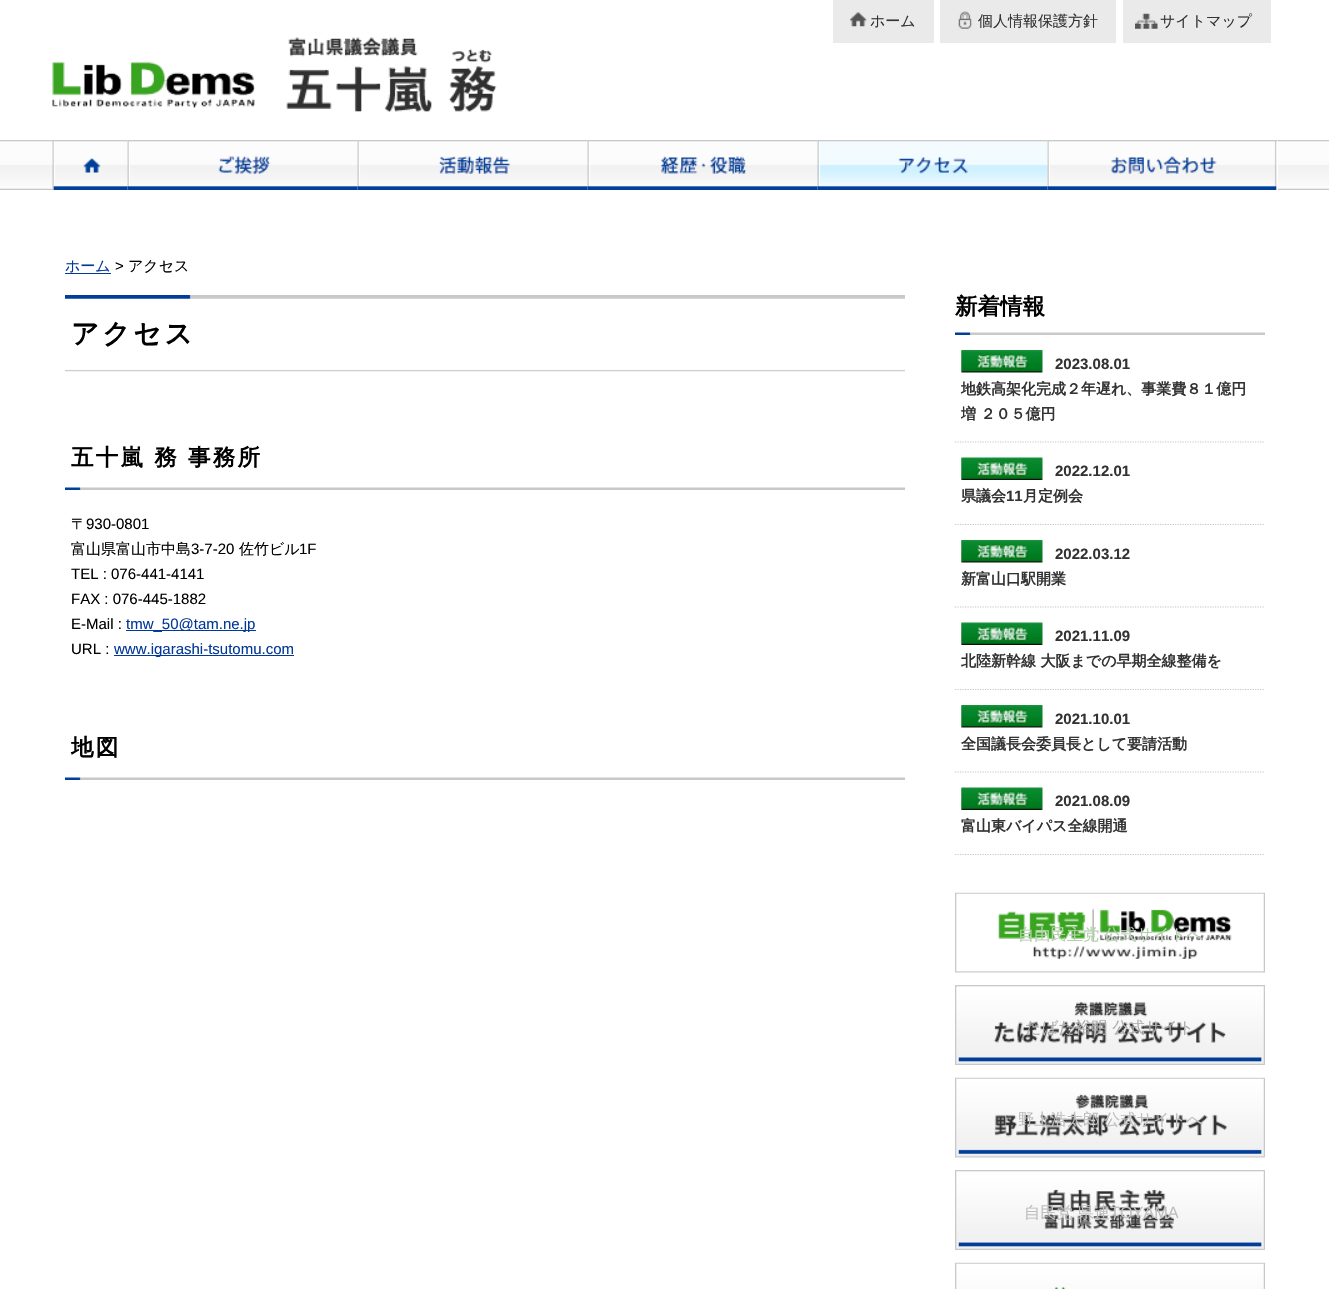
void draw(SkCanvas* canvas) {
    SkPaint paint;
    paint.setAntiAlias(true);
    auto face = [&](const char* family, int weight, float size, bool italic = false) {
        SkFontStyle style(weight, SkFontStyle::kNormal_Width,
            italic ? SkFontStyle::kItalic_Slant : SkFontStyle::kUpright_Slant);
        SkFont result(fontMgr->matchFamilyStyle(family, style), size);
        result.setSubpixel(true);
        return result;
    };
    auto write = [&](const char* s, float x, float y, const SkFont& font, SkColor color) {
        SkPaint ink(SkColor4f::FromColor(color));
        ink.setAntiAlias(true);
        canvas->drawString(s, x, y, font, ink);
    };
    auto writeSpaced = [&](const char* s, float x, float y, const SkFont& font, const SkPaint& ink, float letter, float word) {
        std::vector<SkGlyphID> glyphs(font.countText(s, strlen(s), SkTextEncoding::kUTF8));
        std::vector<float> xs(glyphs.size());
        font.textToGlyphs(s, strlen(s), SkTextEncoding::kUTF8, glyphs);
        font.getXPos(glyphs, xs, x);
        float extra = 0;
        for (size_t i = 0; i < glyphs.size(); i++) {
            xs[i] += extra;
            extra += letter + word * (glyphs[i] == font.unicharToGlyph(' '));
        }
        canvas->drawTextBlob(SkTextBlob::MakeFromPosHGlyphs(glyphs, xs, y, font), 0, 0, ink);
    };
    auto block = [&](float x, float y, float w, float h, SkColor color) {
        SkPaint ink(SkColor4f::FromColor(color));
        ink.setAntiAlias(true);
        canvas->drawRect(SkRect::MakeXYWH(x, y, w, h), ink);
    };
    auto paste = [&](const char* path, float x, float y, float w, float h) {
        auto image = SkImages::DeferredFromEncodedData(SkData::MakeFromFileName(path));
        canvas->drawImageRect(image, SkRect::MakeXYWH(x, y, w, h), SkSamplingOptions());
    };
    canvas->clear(SK_ColorWHITE);
    paste("pic1.png", 0, 140, 1329, 50);
    block(53, 140, 1225, 50, SK_ColorWHITE);
    block(833, 0, 101, 43, SkColorSetRGB(234, 234, 234));
    paste("pic2.png", 850, 12, 17, 15);
    auto kFont1 = face("WenQuanYi Zen Hei", 500, 15);
    write("ホーム", 870, 26, kFont1, SkColorSetRGB(51, 51, 51));
    block(940, 0, 176, 43, SkColorSetRGB(234, 234, 234));
    paste("pic3.png", 958, 11, 14, 18);
    write("個人情報保護方針", 978, 26, kFont1, SkColorSetRGB(51, 51, 51));
    block(1123, 0, 148, 43, SkColorSetRGB(234, 234, 234));
    paste("pic4.png", 1135, 13, 23, 16);
    write("サイトマップ", 1160, 26, kFont1, SkColorSetRGB(51, 51, 51));
    paste("pic5.png", 52, 62, 203, 46);
    paste("pic6.png", 286, 37, 211, 76);
    paste("pic7.png", 52, 140, 76, 50);
    paste("pic8.png", 127, 140, 231, 50);
    paste("pic9.png", 357, 140, 231, 50);
    paste("pic10.png", 587, 140, 231, 50);
    paste("pic11.png", 817, 140, 231, 50);
    paste("pic12.png", 1047, 140, 231, 50);
    write("ホーム", 65, 271, kFont1, SkColorSetRGB(2, 56, 152));
    block(65, 273, 46, 1, SkColorSetRGB(2, 56, 152));
    auto kFont2 = face("Liberation Sans", 400, 15);
    write(">", 115, 271, kFont2, SK_ColorBLACK);
    write("アクセス", 128, 271, kFont1, SK_ColorBLACK);
    paste("pic13.png", 65, 295, 840, 77);
    auto kFont3 = face("WenQuanYi Zen Hei", 700, 27.5f);
    paint.setColor(SK_ColorBLACK);
    writeSpaced("アクセス", 71, 343, kFont3, paint, 3, 0);
    paste("pic14.png", 65, 487, 840, 3);
    auto kFont4 = face("WenQuanYi Zen Hei", 700, 22.5f);
    writeSpaced("五十嵐 務 事務所", 71, 465, kFont4, paint, 2.25f, 0);
    write("〒", 71, 529, kFont1, SK_ColorBLACK);
    write("930-0801", 86, 529, kFont2, SK_ColorBLACK);
    write("富山県富山市中島", 71, 554, kFont1, SK_ColorBLACK);
    write("3-7-20", 191, 554, kFont2, SK_ColorBLACK);
    write("佐竹ビル", 239, 554, kFont1, SK_ColorBLACK);
    write("1F", 299, 554, kFont2, SK_ColorBLACK);
    write("TEL : 076-441-4141", 71, 579, kFont2, SK_ColorBLACK);
    write("FAX : 076-445-1882", 71, 604, kFont2, SK_ColorBLACK);
    write("E-Mail :", 71, 629, kFont2, SK_ColorBLACK);
    block(126, 630, 130, 1, SkColorSetRGB(2, 56, 152));
    write("tmw_50@tam.ne.jp", 126, 629, kFont2, SkColorSetRGB(2, 56, 152));
    write("URL :", 71, 654, kFont2, SK_ColorBLACK);
    block(114, 655, 180, 1, SkColorSetRGB(2, 56, 152));
    write("www.igarashi-tsutomu.com", 114, 654, kFont2, SkColorSetRGB(2, 56, 152));
    paste("pic14.png", 65, 777, 840, 3);
    writeSpaced("地図", 71, 755, kFont4, paint, 2.25f, 0);
    paste("pic15.png", 955, 332, 310, 3);
    write("新着情報", 955, 314, kFont4, SK_ColorBLACK);
    paint.setStyle(SkPaint::kStroke_Style);
    paint.setStrokeWidth(1.2f);
    paint.setColor(SkColorSetRGB(200, 200, 200));
    paint.setPathEffect(SkDashPathEffect::Make({{1.25f, 1.25f}}, 0));
    canvas->drawPath(SkPathBuilder().moveTo(955, 442).lineTo(1265, 442).detach(), paint);
    paint.setPathEffect(nullptr);
    paste("pic16.png", 961, 350, 82, 23);
    auto kFont5 = face("Liberation Sans", 700, 15);
    write("2023.08.01", 1055, 369, kFont5, SkColorSetRGB(51, 51, 51));
    auto kFont6 = face("WenQuanYi Zen Hei", 700, 15);
    write("地鉄高架化完成２年遅れ、事業費８１億円", 961, 394, kFont6, SkColorSetRGB(51, 51, 51));
    write("増 ２０５億円", 961, 419, kFont6, SkColorSetRGB(51, 51, 51));
    paint.setPathEffect(SkDashPathEffect::Make({{1.25f, 1.25f}}, 0));
    canvas->drawPath(SkPathBuilder().moveTo(955, 524.5f).lineTo(1265, 524.5f).detach(), paint);
    paint.setPathEffect(nullptr);
    paste("pic17.png", 961, 457, 82, 23);
    write("2022.12.01", 1055, 476, kFont5, SkColorSetRGB(51, 51, 51));
    write("県議会", 961, 501, kFont6, SkColorSetRGB(51, 51, 51));
    write("11", 1006, 501, kFont5, SkColorSetRGB(51, 51, 51));
    write("月定例会", 1023, 501, kFont6, SkColorSetRGB(51, 51, 51));
    paint.setPathEffect(SkDashPathEffect::Make({{1.25f, 1.25f}}, 0));
    canvas->drawPath(SkPathBuilder().moveTo(955, 607).lineTo(1265, 607).detach(), paint);
    paint.setPathEffect(nullptr);
    paste("pic16.png", 961, 540, 82, 23);
    write("2022.03.12", 1055, 559, kFont5, SkColorSetRGB(51, 51, 51));
    write("新富山口駅開業", 961, 584, kFont6, SkColorSetRGB(51, 51, 51));
    paint.setPathEffect(SkDashPathEffect::Make({{1.25f, 1.25f}}, 0));
    canvas->drawPath(SkPathBuilder().moveTo(955, 689.5f).lineTo(1265, 689.5f).detach(), paint);
    paint.setPathEffect(nullptr);
    paste("pic17.png", 961, 622, 82, 23);
    write("2021.11.09", 1055, 641, kFont5, SkColorSetRGB(51, 51, 51));
    write("北陸新幹線 大阪までの早期全線整備を", 961, 666, kFont6, SkColorSetRGB(51, 51, 51));
    paint.setPathEffect(SkDashPathEffect::Make({{1.25f, 1.25f}}, 0));
    canvas->drawPath(SkPathBuilder().moveTo(955, 772).lineTo(1265, 772).detach(), paint);
    paint.setPathEffect(nullptr);
    paste("pic16.png", 961, 705, 82, 23);
    write("2021.10.01", 1055, 724, kFont5, SkColorSetRGB(51, 51, 51));
    write("全国議長会委員長として要請活動", 961, 749, kFont6, SkColorSetRGB(51, 51, 51));
    paint.setPathEffect(SkDashPathEffect::Make({{1.25f, 1.25f}}, 0));
    canvas->drawPath(SkPathBuilder().moveTo(955, 854.5f).lineTo(1265, 854.5f).detach(), paint);
    paint.setPathEffect(nullptr);
    paste("pic17.png", 961, 787, 82, 23);
    write("2021.08.09", 1055, 806, kFont5, SkColorSetRGB(51, 51, 51));
    write("富山東バイパス全線開通", 961, 831, kFont6, SkColorSetRGB(51, 51, 51));
    paste("pic18.png", 955, 892, 310, 81);
    auto kFont7 = face("WenQuanYi Zen Hei", 500, 16.25f);
    write("自由民主党 公式サイトへ", 1018, 940, kFont7, SkColorSetRGB(180, 208, 173));
    paste("pic19.png", 955, 985, 310, 80);
    write("たばた裕明 公式サイト", 1025, 1033, kFont7, SkColorSetRGB(174, 174, 174));
    paste("pic20.png", 955, 1077, 310, 81);
    write("野上浩太郎 公式サイトへ", 1018, 1125, kFont7, SkColorSetRGB(191, 191, 191));
    paste("pic21.png", 955, 1170, 310, 80);
    write("自民党 県連", 1024, 1218, kFont7, SkColorSetRGB(191, 191, 191));
    auto kFont8 = face("Liberation Sans", 400, 16.25f);
    write("TOYAMA", 1110, 1218, kFont8, SkColorSetRGB(191, 191, 191));
    paste("pic22.png", 955, 1262, 310, 27);
}
